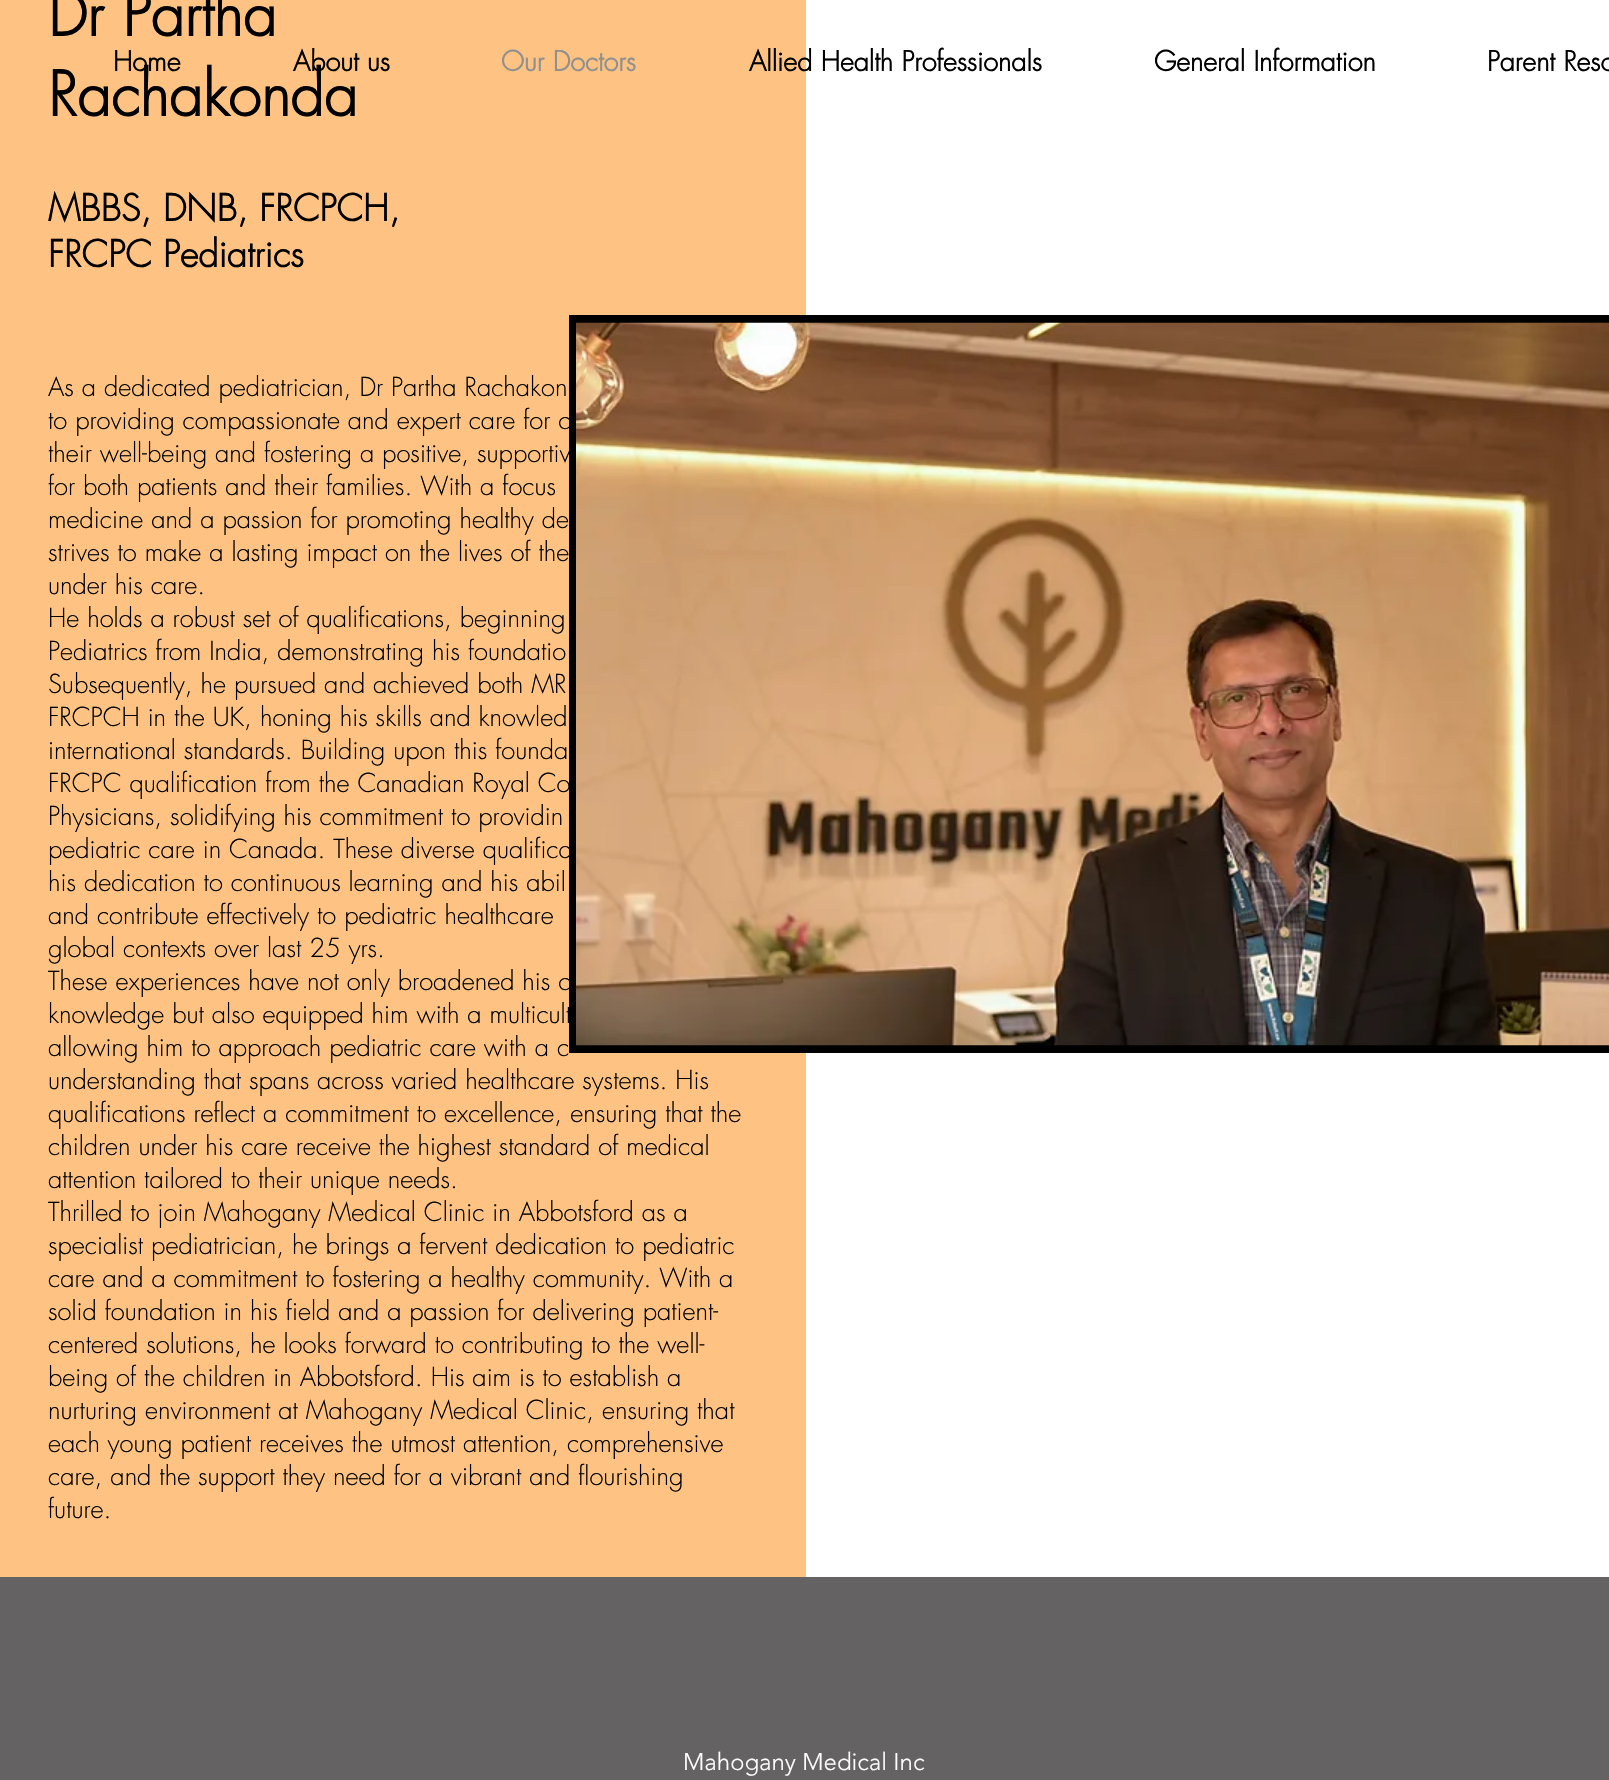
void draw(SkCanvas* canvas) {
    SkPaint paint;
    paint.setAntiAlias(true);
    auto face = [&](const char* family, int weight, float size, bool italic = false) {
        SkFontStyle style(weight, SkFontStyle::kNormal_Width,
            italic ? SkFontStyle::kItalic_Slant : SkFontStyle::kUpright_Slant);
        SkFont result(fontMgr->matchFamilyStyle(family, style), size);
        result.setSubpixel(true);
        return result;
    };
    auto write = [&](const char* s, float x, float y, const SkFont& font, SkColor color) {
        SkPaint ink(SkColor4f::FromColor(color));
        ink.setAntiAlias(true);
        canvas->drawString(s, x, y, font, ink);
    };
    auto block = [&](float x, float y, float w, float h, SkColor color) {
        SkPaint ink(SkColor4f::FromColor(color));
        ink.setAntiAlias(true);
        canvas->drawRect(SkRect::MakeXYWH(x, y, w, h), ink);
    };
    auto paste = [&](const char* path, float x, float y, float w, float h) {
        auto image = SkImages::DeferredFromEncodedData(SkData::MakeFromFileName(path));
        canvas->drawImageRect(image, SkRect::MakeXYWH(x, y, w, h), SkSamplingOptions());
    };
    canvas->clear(SK_ColorWHITE);
    block(0, 0, 806, 1577, SkColorSetRGB(254, 194, 130));
    auto kFont1 = face("futura", 700, 60);
    write("Dr Partha", 48, 36, kFont1, SK_ColorBLACK);
    write("Rachakonda", 48, 116, kFont1, SK_ColorBLACK);
    auto kFont2 = face("futura", 700, 36);
    write("MBBS, DNB, FRCPCH,", 48, 221, kFont2, SK_ColorBLACK);
    write("FRCPC Pediatrics", 48, 267, kFont2, SK_ColorBLACK);
    auto kFont3 = face("futura", 300, 25.5f);
    write("As a dedicated pediatrician, Dr Partha Rachakon", 48, 396, kFont3, SK_ColorBLACK);
    write("to providing compassionate and expert care for c", 48, 429, kFont3, SK_ColorBLACK);
    write("their well-being and fostering a positive, supportiv", 48, 462, kFont3, SK_ColorBLACK);
    write("for both patients and their families. With a focus", 48, 495, kFont3, SK_ColorBLACK);
    write("medicine and a passion for promoting healthy de", 48, 528, kFont3, SK_ColorBLACK);
    write("strives to make a lasting impact on the lives of the", 48, 561, kFont3, SK_ColorBLACK);
    write("under his care.", 48, 594, kFont3, SK_ColorBLACK);
    write("He holds a robust set of qualifications, beginning", 48, 627, kFont3, SK_ColorBLACK);
    write("Pediatrics from India, demonstrating his foundatio", 48, 660, kFont3, SK_ColorBLACK);
    write("Subsequently, he pursued and achieved both MR", 48, 693, kFont3, SK_ColorBLACK);
    write("FRCPCH in the UK, honing his skills and knowled", 48, 726, kFont3, SK_ColorBLACK);
    write("international standards. Building upon this founda", 48, 759, kFont3, SK_ColorBLACK);
    write("FRCPC qualification from the Canadian Royal Co", 48, 792, kFont3, SK_ColorBLACK);
    write("Physicians, solidifying his commitment to providin", 48, 825, kFont3, SK_ColorBLACK);
    write("pediatric care in Canada. These diverse qualifica", 48, 858, kFont3, SK_ColorBLACK);
    write("his dedication to continuous learning and his abil", 48, 891, kFont3, SK_ColorBLACK);
    write("and contribute effectively to pediatric healthcare", 48, 924, kFont3, SK_ColorBLACK);
    write("global contexts over last 25 yrs.", 48, 957, kFont3, SK_ColorBLACK);
    write("These experiences have not only broadened his c", 48, 990, kFont3, SK_ColorBLACK);
    write("knowledge but also equipped him with a multicult", 48, 1023, kFont3, SK_ColorBLACK);
    write("allowing him to approach pediatric care with a c", 48, 1056, kFont3, SK_ColorBLACK);
    write("understanding that spans across varied healthcare systems. His", 48, 1089, kFont3, SK_ColorBLACK);
    write("qualifications reflect a commitment to excellence, ensuring that the", 48, 1122, kFont3, SK_ColorBLACK);
    write("children under his care receive the highest standard of medical", 48, 1155, kFont3, SK_ColorBLACK);
    write("attention tailored to their unique needs.", 48, 1188, kFont3, SK_ColorBLACK);
    write("Thrilled to join Mahogany Medical Clinic in Abbotsford as a", 48, 1221, kFont3, SK_ColorBLACK);
    write("specialist pediatrician, he brings a fervent dedication to pediatric", 48, 1254, kFont3, SK_ColorBLACK);
    write("care and a commitment to fostering a healthy community. With a", 48, 1287, kFont3, SK_ColorBLACK);
    write("solid foundation in his field and a passion for delivering patient-", 48, 1320, kFont3, SK_ColorBLACK);
    write("centered solutions, he looks forward to contributing to the well-", 48, 1353, kFont3, SK_ColorBLACK);
    write("being of the children in Abbotsford. His aim is to establish a", 48, 1386, kFont3, SK_ColorBLACK);
    write("nurturing environment at Mahogany Medical Clinic, ensuring that", 48, 1419, kFont3, SK_ColorBLACK);
    write("each young patient receives the utmost attention, comprehensive", 48, 1452, kFont3, SK_ColorBLACK);
    write("care, and the support they need for a vibrant and flourishing", 48, 1485, kFont3, SK_ColorBLACK);
    write("future.", 48, 1518, kFont3, SK_ColorBLACK);
    block(569, 315, 1040, 738, SK_ColorBLACK);
    paste("pic1.png", 576, 322, 1033, 724);
    auto kFont4 = face("futura", 700, 27);
    write("Home", 113, 71, kFont4, SK_ColorBLACK);
    write("About us", 293, 71, kFont4, SK_ColorBLACK);
    write("Our Doctors", 501, 71, kFont4, SkColorSetRGB(144, 144, 144));
    write("Allied Health Professionals", 749, 71, kFont4, SK_ColorBLACK);
    write("General Information", 1154, 71, kFont4, SK_ColorBLACK);
    write("Parent Reso", 1487, 71, kFont4, SK_ColorBLACK);
    block(0, 1577, 1609, 203, SkColorSetRGB(100, 98, 98));
    auto kFont5 = face("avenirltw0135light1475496", 300, 24);
    write("Mahogany Medical Inc", 683, 1770, kFont5, SK_ColorWHITE);
}
